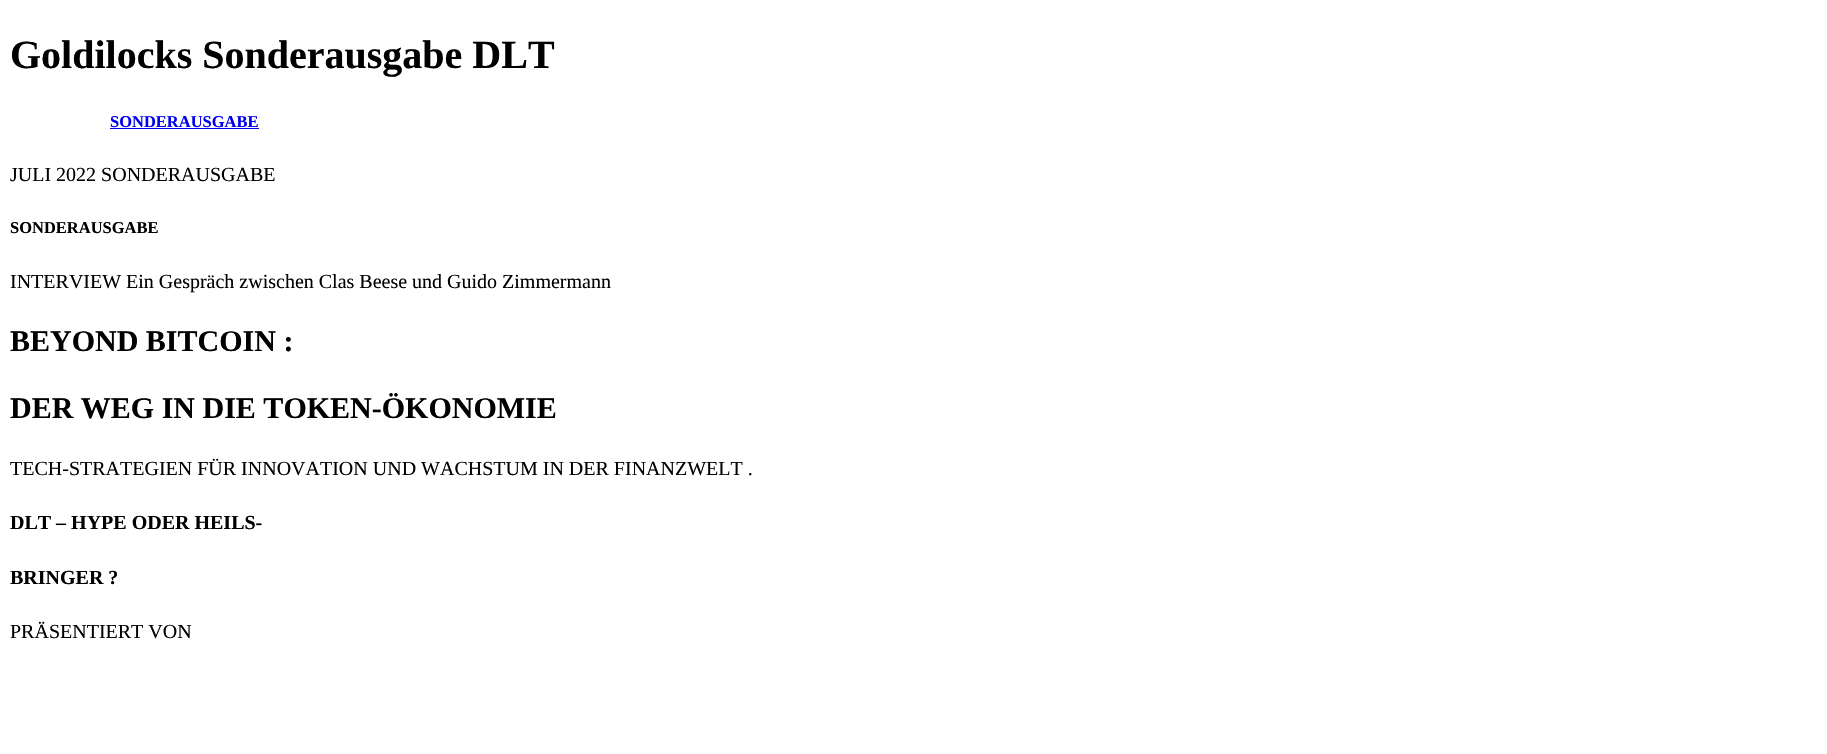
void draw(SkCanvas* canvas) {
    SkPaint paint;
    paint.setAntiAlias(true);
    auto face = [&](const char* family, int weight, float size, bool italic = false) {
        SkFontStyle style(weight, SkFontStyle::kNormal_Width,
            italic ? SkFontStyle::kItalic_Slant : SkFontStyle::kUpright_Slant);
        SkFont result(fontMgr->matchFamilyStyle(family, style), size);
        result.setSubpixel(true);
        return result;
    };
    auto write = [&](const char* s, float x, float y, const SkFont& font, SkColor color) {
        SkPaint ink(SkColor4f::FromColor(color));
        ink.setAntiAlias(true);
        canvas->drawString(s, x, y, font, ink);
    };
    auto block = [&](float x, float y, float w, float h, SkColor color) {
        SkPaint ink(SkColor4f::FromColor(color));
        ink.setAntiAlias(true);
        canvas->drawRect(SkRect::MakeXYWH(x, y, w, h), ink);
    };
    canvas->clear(SK_ColorWHITE);
    auto kFont1 = face("Liberation Serif", 700, 40);
    write("Goldilocks Sonderausgabe DLT", 10, 68, kFont1, SK_ColorBLACK);
    auto kFont2 = face("Liberation Serif", 700, 16.5f);
    write("SONDERAUSGABE", 110, 127, kFont2, SkColorSetRGB(0, 0, 238));
    block(110, 128, 149, 1, SkColorSetRGB(0, 0, 238));
    auto kFont3 = face("Liberation Serif", 400, 20);
    write("JULI 2022 SONDERAUSGABE", 10, 181, kFont3, SK_ColorBLACK);
    write("SONDERAUSGABE", 10, 233, kFont2, SK_ColorBLACK);
    write("INTERVIEW Ein Gespräch zwischen Clas Beese und Guido Zimmermann", 10, 288, kFont3, SK_ColorBLACK);
    auto kFont4 = face("Liberation Serif", 700, 30);
    write("BEYOND BITCOIN :", 10, 351, kFont4, SK_ColorBLACK);
    write("DER WEG IN DIE TOKEN-ÖKONOMIE", 10, 418, kFont4, SK_ColorBLACK);
    write("TECH-STRATEGIEN FÜR INNOVATION UND WACHSTUM IN DER FINANZWELT .", 10, 475, kFont3, SK_ColorBLACK);
    auto kFont5 = face("Liberation Serif", 700, 20);
    write("DLT – HYPE ODER HEILS-", 10, 529, kFont5, SK_ColorBLACK);
    write("BRINGER ?", 10, 584, kFont5, SK_ColorBLACK);
    write("PRÄSENTIERT VON", 10, 638, kFont3, SK_ColorBLACK);
}
